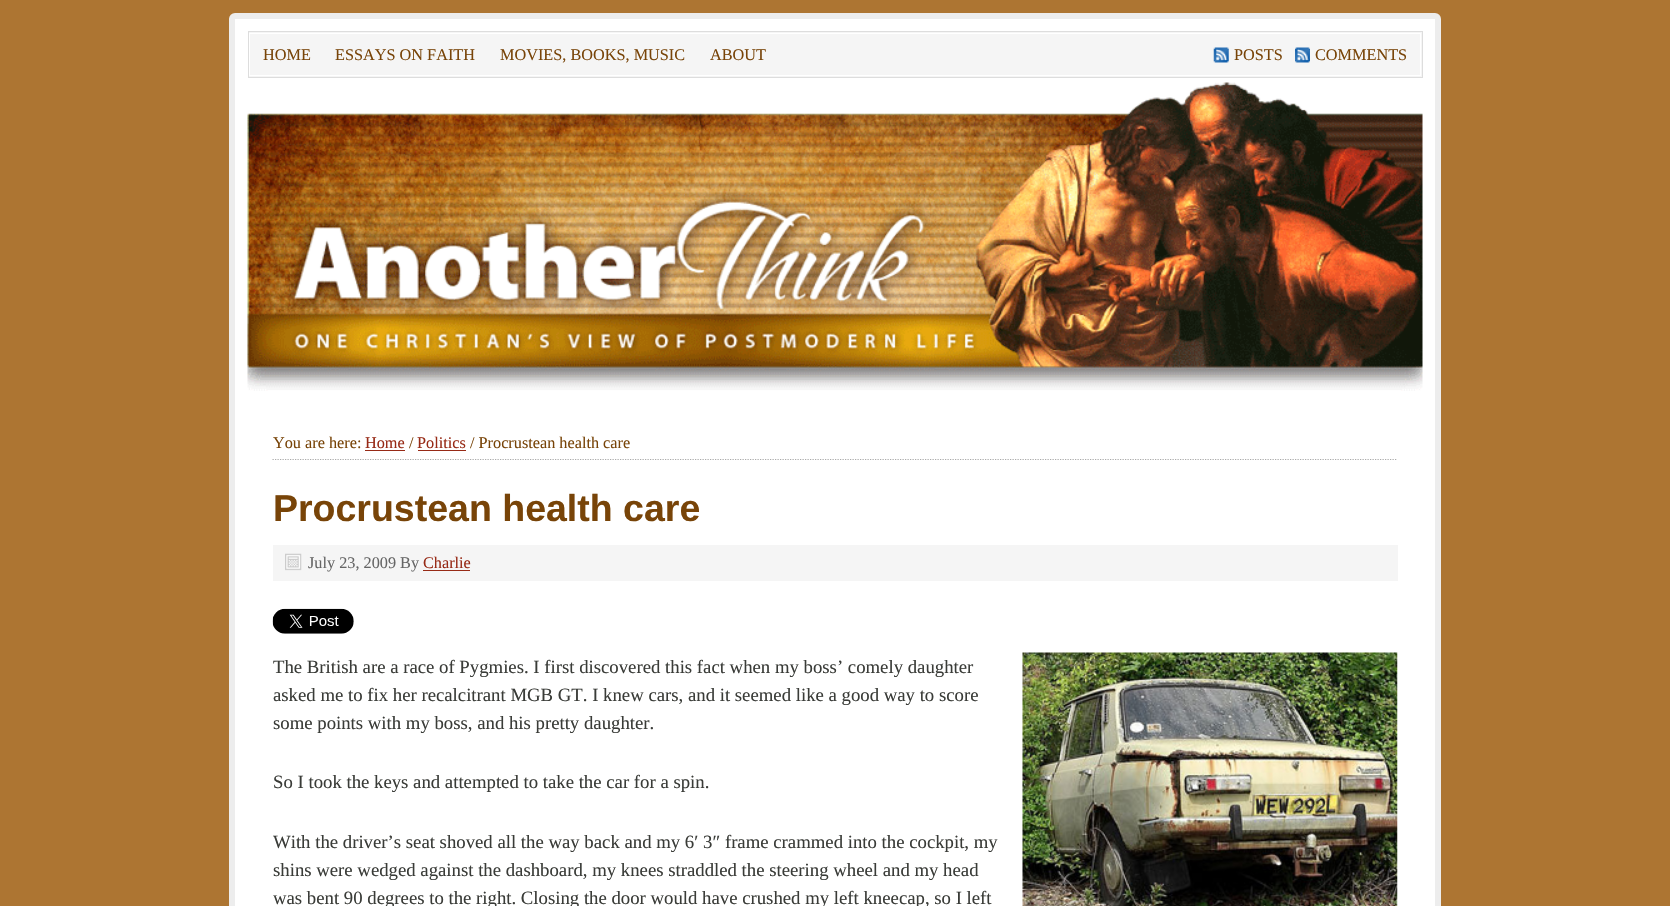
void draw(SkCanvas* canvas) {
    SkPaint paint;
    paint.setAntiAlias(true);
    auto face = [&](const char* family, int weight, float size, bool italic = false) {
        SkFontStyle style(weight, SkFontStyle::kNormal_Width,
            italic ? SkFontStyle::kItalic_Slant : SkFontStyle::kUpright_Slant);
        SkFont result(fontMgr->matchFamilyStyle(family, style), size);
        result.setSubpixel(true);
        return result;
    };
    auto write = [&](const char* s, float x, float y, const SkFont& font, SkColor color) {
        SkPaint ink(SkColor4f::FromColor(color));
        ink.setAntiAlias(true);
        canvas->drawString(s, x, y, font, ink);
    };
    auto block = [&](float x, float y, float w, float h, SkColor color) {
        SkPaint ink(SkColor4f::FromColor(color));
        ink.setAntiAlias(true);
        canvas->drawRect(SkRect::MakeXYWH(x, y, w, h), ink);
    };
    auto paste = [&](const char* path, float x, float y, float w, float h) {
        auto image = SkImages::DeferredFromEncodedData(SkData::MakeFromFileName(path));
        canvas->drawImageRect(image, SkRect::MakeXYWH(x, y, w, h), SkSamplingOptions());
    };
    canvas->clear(SkColorSetRGB(173, 117, 50));
    paint.setColor(SK_ColorWHITE);
    canvas->drawRoundRect(SkRect::MakeXYWH(232, 16, 1206, 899), 3, 3, paint);
    paint.setStyle(SkPaint::kStroke_Style);
    paint.setStrokeWidth(6);
    paint.setColor(SkColorSetRGB(237, 237, 237));
    canvas->drawRoundRect(SkRect::MakeXYWH(232, 16, 1206, 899), 3, 3, paint);
    paint.setStyle(SkPaint::kFill_Style);
    paint.setColor(SkColorSetRGB(245, 245, 245));
    canvas->drawRect(SkRect::MakeXYWH(248.5f, 31.5f, 1174, 46), paint);
    paint.setStyle(SkPaint::kStroke_Style);
    paint.setStrokeWidth(1);
    paint.setColor(SkColorSetRGB(221, 221, 221));
    canvas->drawRect(SkRect::MakeXYWH(248.5f, 31.5f, 1174, 46), paint);
    paint.setColor(SK_ColorWHITE);
    canvas->drawRect(SkRect::MakeXYWH(249.5f, 33.5f, 1171, 42), paint);
    auto kFont1 = face("Liberation Serif", 400, 16.25f);
    write("HOME", 263, 60, kFont1, SkColorSetRGB(120, 68, 8));
    write("ESSAYS ON FAITH", 335, 60, kFont1, SkColorSetRGB(120, 68, 8));
    write("MOVIES, BOOKS, MUSIC", 500, 60, kFont1, SkColorSetRGB(120, 68, 8));
    write("ABOUT", 710, 60, kFont1, SkColorSetRGB(120, 68, 8));
    paste("pic1.png", 1213, 47, 16, 16);
    write("POSTS", 1234, 60, kFont1, SkColorSetRGB(120, 68, 8));
    paste("pic2.png", 1295, 47, 15, 16);
    write("COMMENTS", 1315, 60, kFont1, SkColorSetRGB(120, 68, 8));
    paste("pic3.png", 247, 82, 1176, 309);
    paint.setStrokeWidth(1.2f);
    paint.setColor(SkColorSetRGB(170, 170, 170));
    paint.setPathEffect(SkDashPathEffect::Make({{1.25f, 1.25f}}, 0));
    canvas->drawPath(SkPathBuilder().moveTo(272.5f, 459.5f).lineTo(1397.5f, 459.5f).detach(), paint);
    paint.setPathEffect(nullptr);
    write("You are here:", 273, 448, kFont1, SkColorSetRGB(120, 68, 8));
    write("Home", 365, 448, kFont1, SkColorSetRGB(151, 42, 22));
    block(365, 450, 40, 1, SkColorSetRGB(151, 42, 22));
    write("/", 409, 448, kFont1, SkColorSetRGB(120, 68, 8));
    write("Politics", 417, 448, kFont1, SkColorSetRGB(151, 42, 22));
    block(418, 450, 48, 1, SkColorSetRGB(151, 42, 22));
    write("/ Procrustean health care", 470, 448, kFont1, SkColorSetRGB(120, 68, 8));
    auto kFont2 = face("Liberation Sans", 700, 37.5f);
    write("Procrustean health care", 273, 521, kFont2, SkColorSetRGB(120, 68, 8));
    block(273, 545, 1125, 36, SkColorSetRGB(245, 245, 245));
    paste("pic4.png", 285, 553, 17, 18);
    write("July 23, 2009 By", 308, 568, kFont1, SkColorSetRGB(102, 102, 102));
    write("Charlie", 423, 568, kFont1, SkColorSetRGB(151, 42, 22));
    block(423, 570, 47, 1, SkColorSetRGB(151, 42, 22));
    paste("pic5.png", 272, 608, 82, 26);
    canvas->save();
    canvas->clipRect(SkRect::MakeXYWH(273, 606, 1125, 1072));
    auto kFont3 = face("Liberation Serif", 400, 18.75f);
    write("The British are a race of Pygmies. I first discovered this fact when my boss’ comely daughter", 273, 673, kFont3, SkColorSetRGB(58, 60, 56));
    canvas->restore();
    paste("pic6.png", 1022, 652, 376, 254);
    write("asked me to fix her recalcitrant MGB GT. I knew cars, and it seemed like a good way to score", 273, 701, kFont3, SkColorSetRGB(58, 60, 56));
    write("some points with my boss, and his pretty daughter.", 273, 729, kFont3, SkColorSetRGB(58, 60, 56));
    write("So I took the keys and attempted to take the car for a spin.", 273, 788, kFont3, SkColorSetRGB(58, 60, 56));
    write("With the driver’s seat shoved all the way back and my 6′ 3″ frame crammed into the cockpit, my", 273, 848, kFont3, SkColorSetRGB(58, 60, 56));
    write("shins were wedged against the dashboard, my knees straddled the steering wheel and my head", 273, 876, kFont3, SkColorSetRGB(58, 60, 56));
    write("was bent 90 degrees to the right. Closing the door would have crushed my left kneecap, so I left", 273, 904, kFont3, SkColorSetRGB(58, 60, 56));
}
